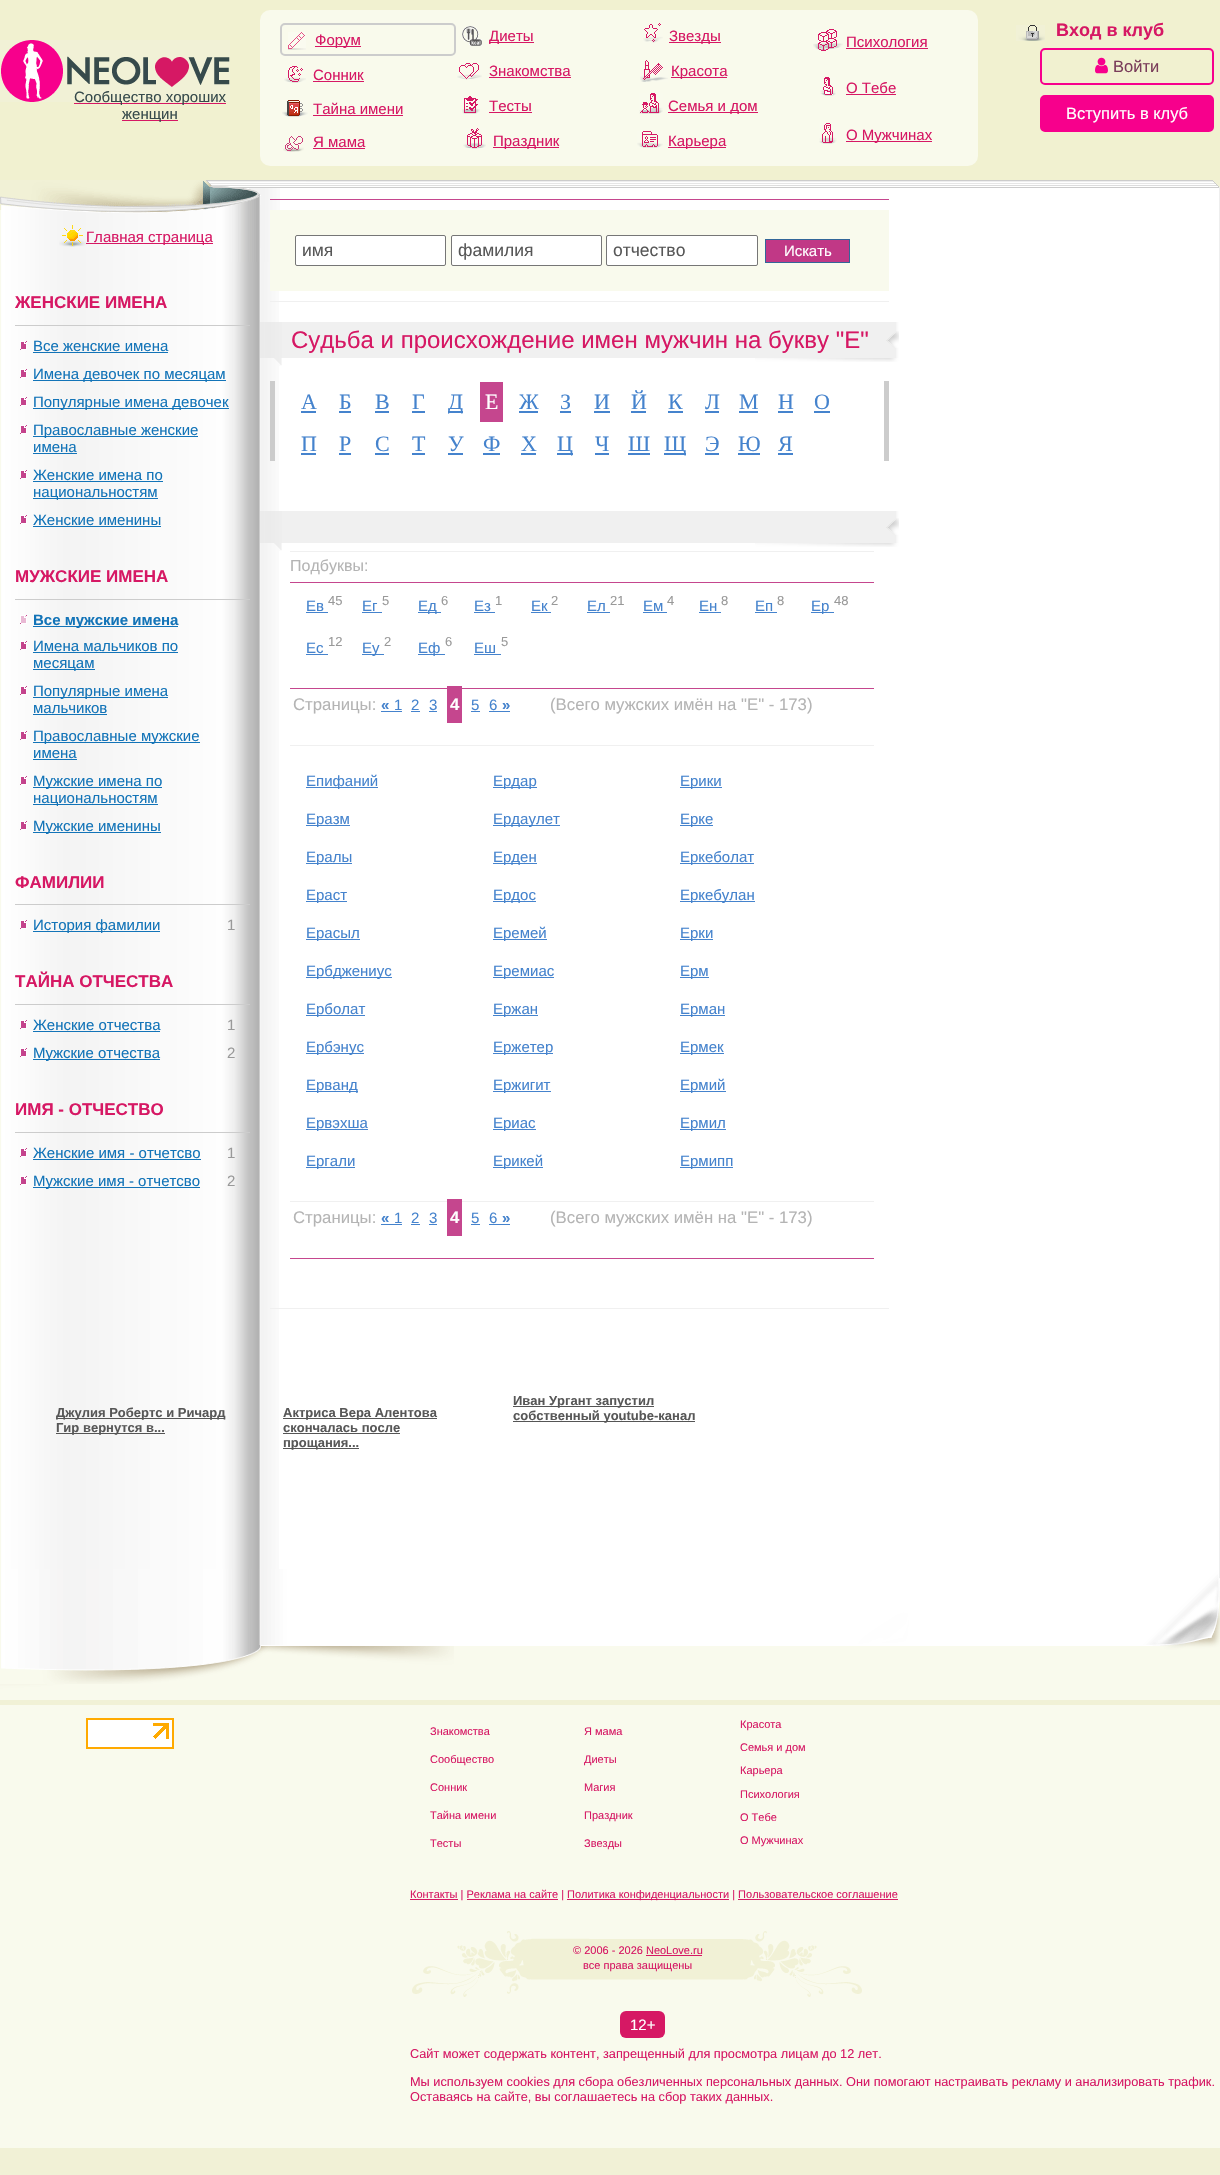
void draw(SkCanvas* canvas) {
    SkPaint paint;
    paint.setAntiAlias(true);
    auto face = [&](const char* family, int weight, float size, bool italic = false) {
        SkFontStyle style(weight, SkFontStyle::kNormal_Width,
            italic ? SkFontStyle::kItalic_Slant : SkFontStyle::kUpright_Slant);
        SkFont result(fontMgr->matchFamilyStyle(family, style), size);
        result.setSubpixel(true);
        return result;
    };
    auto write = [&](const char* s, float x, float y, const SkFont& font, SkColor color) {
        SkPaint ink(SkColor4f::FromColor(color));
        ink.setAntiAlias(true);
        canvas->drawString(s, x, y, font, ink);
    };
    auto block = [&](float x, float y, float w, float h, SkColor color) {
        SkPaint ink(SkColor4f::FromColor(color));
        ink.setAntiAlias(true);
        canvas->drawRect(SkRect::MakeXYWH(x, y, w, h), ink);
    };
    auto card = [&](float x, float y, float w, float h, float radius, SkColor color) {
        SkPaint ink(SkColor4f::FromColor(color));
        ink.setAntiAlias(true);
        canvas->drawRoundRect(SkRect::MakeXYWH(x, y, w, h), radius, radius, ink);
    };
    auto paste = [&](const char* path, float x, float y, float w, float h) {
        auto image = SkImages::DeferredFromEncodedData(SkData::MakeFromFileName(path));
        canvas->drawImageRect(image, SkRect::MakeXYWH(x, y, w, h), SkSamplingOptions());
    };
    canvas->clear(SkColorSetRGB(241, 241, 214));
    block(0, 0, 1220, 180, SkColorSetRGB(241, 241, 208));
    paste("pic1.png", 0, 40, 230, 62);
    block(74, 103, 152, 1, SkColorSetRGB(214, 24, 100));
    auto kFont1 = face("Liberation Sans", 400, 15);
    write("Сообщество хороших", 74, 102, kFont1, SkColorSetRGB(54, 74, 75));
    block(122, 120, 56, 1, SkColorSetRGB(214, 24, 100));
    write("женщин", 122, 119, kFont1, SkColorSetRGB(54, 74, 75));
    card(260, 10, 718, 156, 10, SkColorSetRGB(249, 250, 236));
    paste("pic2.png", 288, 32, 18, 18);
    paint.setStyle(SkPaint::kStroke_Style);
    paint.setStrokeWidth(2);
    paint.setColor(SkColorSetRGB(204, 204, 204));
    canvas->drawRoundRect(SkRect::MakeXYWH(281, 24, 174, 31), 4, 4, paint);
    block(315, 46, 46, 1, SkColorSetRGB(214, 24, 100));
    write("Форум", 315, 45, kFont1, SkColorSetRGB(214, 24, 100));
    paste("pic3.png", 462, 26, 20, 20);
    block(489, 42, 45, 1, SkColorSetRGB(214, 24, 100));
    write("Диеты", 489, 41, kFont1, SkColorSetRGB(214, 24, 100));
    paste("pic4.png", 643, 23, 20, 20);
    block(669, 42, 52, 1, SkColorSetRGB(214, 24, 100));
    write("Звезды", 669, 41, kFont1, SkColorSetRGB(214, 24, 100));
    paste("pic5.png", 813, 29, 30, 22);
    write("Психология", 846, 47, kFont1, SkColorSetRGB(214, 24, 100));
    block(846, 48, 82, 1, SkColorSetRGB(214, 24, 100));
    paste("pic6.png", 284, 66, 22, 17);
    write("Сонник", 313, 80, kFont1, SkColorSetRGB(214, 24, 100));
    block(313, 81, 51, 1, SkColorSetRGB(214, 24, 100));
    paste("pic7.png", 457, 63, 25, 17);
    write("Знакомства", 489, 76, kFont1, SkColorSetRGB(214, 24, 100));
    block(489, 77, 82, 1, SkColorSetRGB(214, 24, 100));
    paste("pic8.png", 640, 60, 28, 22);
    block(671, 77, 56, 1, SkColorSetRGB(214, 24, 100));
    write("Красота", 671, 76, kFont1, SkColorSetRGB(214, 24, 100));
    paste("pic9.png", 820, 77, 16, 19);
    write("О Тебе", 846, 93, kFont1, SkColorSetRGB(214, 24, 100));
    block(846, 94, 50, 1, SkColorSetRGB(214, 24, 100));
    paste("pic10.png", 282, 100, 26, 17);
    write("Тайна имени", 313, 114, kFont1, SkColorSetRGB(214, 24, 100));
    block(313, 115, 90, 1, SkColorSetRGB(214, 24, 100));
    paste("pic11.png", 462, 96, 18, 18);
    write("Тесты", 489, 111, kFont1, SkColorSetRGB(214, 24, 100));
    block(489, 112, 43, 1, SkColorSetRGB(214, 24, 100));
    paste("pic12.png", 639, 93, 24, 21);
    block(668, 112, 90, 1, SkColorSetRGB(214, 24, 100));
    write("Семья и дом", 668, 111, kFont1, SkColorSetRGB(214, 24, 100));
    paste("pic13.png", 283, 136, 21, 16);
    write("Я мама", 313, 147, kFont1, SkColorSetRGB(214, 24, 100));
    block(313, 148, 52, 1, SkColorSetRGB(214, 24, 100));
    paste("pic14.png", 463, 128, 23, 21);
    block(493, 147, 66, 1, SkColorSetRGB(214, 24, 100));
    write("Праздник", 493, 146, kFont1, SkColorSetRGB(214, 24, 100));
    paste("pic15.png", 637, 131, 26, 17);
    block(668, 147, 58, 1, SkColorSetRGB(214, 24, 100));
    write("Карьера", 668, 146, kFont1, SkColorSetRGB(214, 24, 100));
    paste("pic16.png", 819, 123, 18, 21);
    block(846, 141, 86, 1, SkColorSetRGB(214, 24, 100));
    write("О Мужчинах", 846, 140, kFont1, SkColorSetRGB(214, 24, 100));
    paste("pic17.png", 1016, 25, 29, 16);
    auto kFont2 = face("Liberation Sans", 700, 18);
    write("Вход в клуб", 1056, 36, kFont2, SkColorSetRGB(214, 24, 100));
    paint.setColor(SkColorSetRGB(247, 0, 140));
    canvas->drawRoundRect(SkRect::MakeXYWH(1041, 49, 172, 35), 4, 4, paint);
    paste("pic18.png", 1095, 57, 13, 17);
    auto kFont3 = face("Liberation Sans", 400, 16.5f);
    write("Войти", 1113, 72, kFont3, SkColorSetRGB(122, 61, 90));
    paint.setStyle(SkPaint::kFill_Style);
    canvas->drawRoundRect(SkRect::MakeXYWH(1041, 96, 172, 35), 4, 4, paint);
    paint.setStyle(SkPaint::kStroke_Style);
    canvas->drawRoundRect(SkRect::MakeXYWH(1041, 96, 172, 35), 4, 4, paint);
    write("Вступить в клуб", 1066, 119, kFont3, SK_ColorWHITE);
    block(279, 262, 940, 1307, SK_ColorWHITE);
    paste("pic19.png", 0, 262, 279, 1307);
    paste("pic20.png", 280, 180, 940, 177);
    paste("pic21.png", 0, 180, 280, 82);
    paste("pic30.png", 0, 1569, 1220, 131);
    block(1219, 357, 1, 1221, SkColorSetRGB(238, 238, 238));
    paste("pic22.png", 59, 225, 28, 22);
    block(86, 243, 127, 1, SkColorSetRGB(214, 24, 100));
    write("Главная страница", 86, 242, kFont1, SkColorSetRGB(214, 24, 100));
    block(15, 325, 235, 1, SkColorSetRGB(204, 204, 204));
    auto kFont4 = face("Liberation Sans", 700, 17);
    write("ЖЕНСКИЕ ИМЕНА", 15, 308, kFont4, SkColorSetRGB(214, 24, 100));
    paste("pic23.png", 20, 341, 7, 9);
    write("Все женские имена", 33, 351, kFont1, SkColorSetRGB(19, 116, 184));
    block(33, 352, 135, 1, SkColorSetRGB(19, 116, 184));
    paste("pic23.png", 20, 369, 7, 9);
    block(33, 380, 193, 1, SkColorSetRGB(19, 116, 184));
    write("Имена девочек по месяцам", 33, 379, kFont1, SkColorSetRGB(19, 116, 184));
    paste("pic23.png", 20, 397, 7, 9);
    block(33, 408, 196, 1, SkColorSetRGB(19, 116, 184));
    write("Популярные имена девочек", 33, 407, kFont1, SkColorSetRGB(19, 116, 184));
    paste("pic23.png", 20, 425, 7, 9);
    block(33, 436, 165, 1, SkColorSetRGB(19, 116, 184));
    write("Православные женские", 33, 435, kFont1, SkColorSetRGB(19, 116, 184));
    write("имена", 33, 452, kFont1, SkColorSetRGB(19, 116, 184));
    block(33, 453, 44, 1, SkColorSetRGB(19, 116, 184));
    paste("pic23.png", 20, 470, 7, 9);
    write("Женские имена по", 33, 480, kFont1, SkColorSetRGB(19, 116, 184));
    block(33, 481, 130, 1, SkColorSetRGB(19, 116, 184));
    block(33, 498, 125, 1, SkColorSetRGB(19, 116, 184));
    write("национальностям", 33, 497, kFont1, SkColorSetRGB(19, 116, 184));
    paste("pic23.png", 20, 515, 7, 9);
    write("Женские именины", 33, 525, kFont1, SkColorSetRGB(19, 116, 184));
    block(33, 526, 128, 1, SkColorSetRGB(19, 116, 184));
    block(15, 599, 235, 1, SkColorSetRGB(204, 204, 204));
    write("МУЖСКИЕ ИМЕНА", 15, 582, kFont4, SkColorSetRGB(214, 24, 100));
    paste("pic24.png", 20, 615, 7, 9);
    block(33, 626, 145, 1, SkColorSetRGB(19, 116, 184));
    auto kFont5 = face("Liberation Sans", 700, 15);
    write("Все мужские имена", 33, 625, kFont5, SkColorSetRGB(19, 116, 184));
    paste("pic23.png", 20, 641, 7, 9);
    write("Имена мальчиков по", 33, 651, kFont1, SkColorSetRGB(19, 116, 184));
    block(33, 652, 145, 1, SkColorSetRGB(19, 116, 184));
    block(33, 669, 62, 1, SkColorSetRGB(19, 116, 184));
    write("месяцам", 33, 668, kFont1, SkColorSetRGB(19, 116, 184));
    paste("pic23.png", 20, 686, 7, 9);
    block(33, 697, 135, 1, SkColorSetRGB(19, 116, 184));
    write("Популярные имена", 33, 696, kFont1, SkColorSetRGB(19, 116, 184));
    write("мальчиков", 33, 713, kFont1, SkColorSetRGB(19, 116, 184));
    block(33, 714, 74, 1, SkColorSetRGB(19, 116, 184));
    paste("pic23.png", 20, 731, 7, 9);
    block(33, 742, 167, 1, SkColorSetRGB(19, 116, 184));
    write("Православные мужские", 33, 741, kFont1, SkColorSetRGB(19, 116, 184));
    write("имена", 33, 758, kFont1, SkColorSetRGB(19, 116, 184));
    block(33, 759, 44, 1, SkColorSetRGB(19, 116, 184));
    paste("pic23.png", 20, 776, 7, 9);
    block(33, 787, 129, 1, SkColorSetRGB(19, 116, 184));
    write("Мужские имена по", 33, 786, kFont1, SkColorSetRGB(19, 116, 184));
    block(33, 804, 125, 1, SkColorSetRGB(19, 116, 184));
    write("национальностям", 33, 803, kFont1, SkColorSetRGB(19, 116, 184));
    paste("pic23.png", 20, 821, 7, 9);
    block(33, 832, 128, 1, SkColorSetRGB(19, 116, 184));
    write("Мужские именины", 33, 831, kFont1, SkColorSetRGB(19, 116, 184));
    block(15, 904, 235, 1, SkColorSetRGB(204, 204, 204));
    write("ФАМИЛИИ", 15, 888, kFont4, SkColorSetRGB(214, 24, 100));
    paste("pic23.png", 20, 920, 7, 9);
    block(33, 931, 127, 1, SkColorSetRGB(19, 116, 184));
    write("История фамилии", 33, 930, kFont1, SkColorSetRGB(19, 116, 184));
    write("1", 227, 930, kFont1, SkColorSetRGB(153, 153, 153));
    block(15, 1004, 235, 1, SkColorSetRGB(204, 204, 204));
    write("ТАЙНА ОТЧЕСТВА", 15, 987, kFont4, SkColorSetRGB(214, 24, 100));
    paste("pic23.png", 20, 1020, 7, 9);
    write("Женские отчества", 33, 1030, kFont1, SkColorSetRGB(19, 116, 184));
    block(33, 1031, 127, 1, SkColorSetRGB(19, 116, 184));
    write("1", 227, 1030, kFont1, SkColorSetRGB(153, 153, 153));
    paste("pic23.png", 20, 1048, 7, 9);
    block(33, 1059, 127, 1, SkColorSetRGB(19, 116, 184));
    write("Мужские отчества", 33, 1058, kFont1, SkColorSetRGB(19, 116, 184));
    write("2", 227, 1058, kFont1, SkColorSetRGB(153, 153, 153));
    block(15, 1132, 235, 1, SkColorSetRGB(204, 204, 204));
    write("ИМЯ - ОТЧЕСТВО", 15, 1115, kFont4, SkColorSetRGB(214, 24, 100));
    paste("pic23.png", 20, 1148, 7, 9);
    write("Женские имя - отчетсво", 33, 1158, kFont1, SkColorSetRGB(19, 116, 184));
    block(33, 1159, 168, 1, SkColorSetRGB(19, 116, 184));
    write("1", 227, 1158, kFont1, SkColorSetRGB(153, 153, 153));
    paste("pic23.png", 20, 1176, 7, 9);
    block(33, 1187, 167, 1, SkColorSetRGB(19, 116, 184));
    write("Мужские имя - отчетсво", 33, 1186, kFont1, SkColorSetRGB(19, 116, 184));
    write("2", 227, 1186, kFont1, SkColorSetRGB(153, 153, 153));
    block(270, 199, 619, 1, SkColorSetRGB(197, 70, 142));
    block(270, 301, 619, 1, SkColorSetRGB(240, 240, 240));
    block(270, 210, 619, 81, SkColorSetRGB(249, 250, 237));
    paint.setStyle(SkPaint::kFill_Style);
    paint.setColor(SK_ColorWHITE);
    canvas->drawRoundRect(SkRect::MakeXYWH(295.5f, 235.5f, 150, 30), 1.5f, 1.5f, paint);
    paint.setStyle(SkPaint::kStroke_Style);
    paint.setStrokeWidth(1);
    paint.setColor(SkColorSetRGB(118, 118, 118));
    canvas->drawRoundRect(SkRect::MakeXYWH(295.5f, 235.5f, 150, 30), 1.5f, 1.5f, paint);
    auto kFont6 = face("Liberation Sans", 400, 17.5f);
    write("имя", 302, 256, kFont6, SkColorSetRGB(87, 87, 87));
    paint.setStyle(SkPaint::kFill_Style);
    paint.setColor(SK_ColorWHITE);
    canvas->drawRoundRect(SkRect::MakeXYWH(451.5f, 235.5f, 150, 30), 1.5f, 1.5f, paint);
    paint.setStyle(SkPaint::kStroke_Style);
    paint.setColor(SkColorSetRGB(118, 118, 118));
    canvas->drawRoundRect(SkRect::MakeXYWH(451.5f, 235.5f, 150, 30), 1.5f, 1.5f, paint);
    write("фамилия", 458, 256, kFont6, SkColorSetRGB(87, 87, 87));
    paint.setStyle(SkPaint::kFill_Style);
    paint.setColor(SK_ColorWHITE);
    canvas->drawRoundRect(SkRect::MakeXYWH(606.5f, 235.5f, 151, 30), 1.5f, 1.5f, paint);
    paint.setStyle(SkPaint::kStroke_Style);
    paint.setColor(SkColorSetRGB(118, 118, 118));
    canvas->drawRoundRect(SkRect::MakeXYWH(606.5f, 235.5f, 151, 30), 1.5f, 1.5f, paint);
    write("отчество", 613, 256, kFont6, SkColorSetRGB(87, 87, 87));
    paint.setStyle(SkPaint::kFill_Style);
    paint.setColor(SkColorSetRGB(193, 56, 134));
    canvas->drawRect(SkRect::MakeXYWH(765.5f, 239.5f, 84, 23), paint);
    paint.setStyle(SkPaint::kStroke_Style);
    paint.setColor(SkColorSetRGB(51, 102, 153));
    canvas->drawRect(SkRect::MakeXYWH(765.5f, 239.5f, 84, 23), paint);
    write("Искать", 784, 256, kFont1, SK_ColorWHITE);
    block(282, 322, 614, 36, SkColorSetRGB(240, 240, 240));
    paste("pic25.png", 260, 322, 22, 44);
    paste("pic26.png", 755, 322, 144, 40);
    paste("pic27.png", 886, 331, 13, 17);
    auto kFont7 = face("Liberation Sans", 400, 24);
    write("Судьба и происхождение имен мужчин на букву \"Е\"", 291, 348, kFont7, SkColorSetRGB(214, 24, 100));
    block(884, 381, 5, 80, SkColorSetRGB(204, 204, 204));
    block(270, 381, 5, 80, SkColorSetRGB(204, 204, 204));
    auto kFont8 = face("Liberation Serif", 400, 22);
    write("А", 301, 409, kFont8, SkColorSetRGB(69, 131, 205));
    block(301, 411, 15, 2, SkColorSetRGB(69, 131, 205));
    write("Б", 339, 409, kFont8, SkColorSetRGB(69, 131, 205));
    block(339, 411, 12, 2, SkColorSetRGB(69, 131, 205));
    write("В", 375, 409, kFont8, SkColorSetRGB(69, 131, 205));
    block(375, 411, 14, 2, SkColorSetRGB(69, 131, 205));
    write("Г", 412, 409, kFont8, SkColorSetRGB(69, 131, 205));
    block(412, 411, 13, 2, SkColorSetRGB(69, 131, 205));
    block(448, 411, 15, 2, SkColorSetRGB(69, 131, 205));
    write("Д", 448, 409, kFont8, SkColorSetRGB(69, 131, 205));
    block(480, 382, 23, 40, SkColorSetRGB(197, 70, 142));
    write("Е", 485, 409, kFont8, SK_ColorWHITE);
    write("Ж", 519, 409, kFont8, SkColorSetRGB(69, 131, 205));
    block(519, 411, 19, 2, SkColorSetRGB(69, 131, 205));
    write("З", 560, 409, kFont8, SkColorSetRGB(69, 131, 205));
    block(560, 411, 11, 2, SkColorSetRGB(69, 131, 205));
    write("И", 594, 409, kFont8, SkColorSetRGB(69, 131, 205));
    block(594, 411, 16, 2, SkColorSetRGB(69, 131, 205));
    write("Й", 631, 409, kFont8, SkColorSetRGB(69, 131, 205));
    block(631, 411, 15, 2, SkColorSetRGB(69, 131, 205));
    write("К", 668, 409, kFont8, SkColorSetRGB(69, 131, 205));
    block(668, 411, 15, 2, SkColorSetRGB(69, 131, 205));
    write("Л", 705, 409, kFont8, SkColorSetRGB(69, 131, 205));
    block(705, 411, 14, 2, SkColorSetRGB(69, 131, 205));
    write("М", 739, 409, kFont8, SkColorSetRGB(69, 131, 205));
    block(739, 411, 19, 2, SkColorSetRGB(69, 131, 205));
    write("Н", 778, 409, kFont8, SkColorSetRGB(69, 131, 205));
    block(778, 411, 15, 2, SkColorSetRGB(69, 131, 205));
    write("О", 814, 409, kFont8, SkColorSetRGB(69, 131, 205));
    block(814, 411, 16, 2, SkColorSetRGB(69, 131, 205));
    write("П", 301, 451, kFont8, SkColorSetRGB(69, 131, 205));
    block(301, 453, 15, 2, SkColorSetRGB(69, 131, 205));
    write("Р", 339, 451, kFont8, SkColorSetRGB(69, 131, 205));
    block(339, 453, 12, 2, SkColorSetRGB(69, 131, 205));
    write("С", 375, 451, kFont8, SkColorSetRGB(69, 131, 205));
    block(375, 453, 14, 2, SkColorSetRGB(69, 131, 205));
    write("Т", 412, 451, kFont8, SkColorSetRGB(69, 131, 205));
    block(412, 453, 13, 2, SkColorSetRGB(69, 131, 205));
    write("У", 448, 451, kFont8, SkColorSetRGB(69, 131, 205));
    block(448, 453, 15, 2, SkColorSetRGB(69, 131, 205));
    write("Ф", 483, 451, kFont8, SkColorSetRGB(69, 131, 205));
    block(483, 453, 17, 2, SkColorSetRGB(69, 131, 205));
    write("Х", 521, 451, kFont8, SkColorSetRGB(69, 131, 205));
    block(521, 453, 15, 2, SkColorSetRGB(69, 131, 205));
    block(557, 453, 16, 2, SkColorSetRGB(69, 131, 205));
    write("Ц", 557, 451, kFont8, SkColorSetRGB(69, 131, 205));
    write("Ч", 595, 451, kFont8, SkColorSetRGB(69, 131, 205));
    block(595, 453, 14, 2, SkColorSetRGB(69, 131, 205));
    write("Ш", 628, 451, kFont8, SkColorSetRGB(69, 131, 205));
    block(628, 453, 22, 2, SkColorSetRGB(69, 131, 205));
    block(664, 453, 22, 2, SkColorSetRGB(69, 131, 205));
    write("Щ", 664, 451, kFont8, SkColorSetRGB(69, 131, 205));
    write("Э", 705, 451, kFont8, SkColorSetRGB(69, 131, 205));
    block(705, 453, 14, 2, SkColorSetRGB(69, 131, 205));
    write("Ю", 738, 451, kFont8, SkColorSetRGB(69, 131, 205));
    block(738, 453, 22, 2, SkColorSetRGB(69, 131, 205));
    write("Я", 778, 451, kFont8, SkColorSetRGB(69, 131, 205));
    block(778, 453, 15, 2, SkColorSetRGB(69, 131, 205));
    block(282, 511, 614, 32, SkColorSetRGB(240, 240, 240));
    paste("pic28.png", 260, 511, 22, 40);
    paste("pic29.png", 755, 511, 144, 36);
    paste("pic27.png", 886, 518, 13, 17);
    block(290, 551, 584, 1, SkColorSetRGB(240, 240, 240));
    block(290, 582, 584, 1, SkColorSetRGB(197, 70, 142));
    auto kFont9 = face("Liberation Sans", 400, 16);
    write("Подбуквы:", 290, 571, kFont9, SkColorSetRGB(180, 180, 180));
    write("Ев", 306, 611, kFont1, SkColorSetRGB(69, 131, 205));
    block(306, 612, 22, 1, SkColorSetRGB(69, 131, 205));
    auto kFont10 = face("Liberation Sans", 400, 13);
    write("45", 328, 605, kFont10, SkColorSetRGB(153, 153, 153));
    write("Ег", 362, 611, kFont1, SkColorSetRGB(69, 131, 205));
    block(362, 612, 20, 1, SkColorSetRGB(69, 131, 205));
    write("5", 382, 605, kFont10, SkColorSetRGB(153, 153, 153));
    block(418, 612, 23, 1, SkColorSetRGB(69, 131, 205));
    write("Ед", 418, 611, kFont1, SkColorSetRGB(69, 131, 205));
    write("6", 441, 605, kFont10, SkColorSetRGB(153, 153, 153));
    write("Ез", 474, 611, kFont1, SkColorSetRGB(69, 131, 205));
    block(474, 612, 21, 1, SkColorSetRGB(69, 131, 205));
    write("1", 495, 605, kFont10, SkColorSetRGB(153, 153, 153));
    write("Ек", 531, 611, kFont1, SkColorSetRGB(69, 131, 205));
    block(531, 612, 20, 1, SkColorSetRGB(69, 131, 205));
    write("2", 551, 605, kFont10, SkColorSetRGB(153, 153, 153));
    write("Ел", 587, 611, kFont1, SkColorSetRGB(69, 131, 205));
    block(587, 612, 23, 1, SkColorSetRGB(69, 131, 205));
    write("21", 610, 605, kFont10, SkColorSetRGB(153, 153, 153));
    write("Ем", 643, 611, kFont1, SkColorSetRGB(69, 131, 205));
    block(643, 612, 24, 1, SkColorSetRGB(69, 131, 205));
    write("4", 667, 605, kFont10, SkColorSetRGB(153, 153, 153));
    write("Ен", 699, 611, kFont1, SkColorSetRGB(69, 131, 205));
    block(699, 612, 22, 1, SkColorSetRGB(69, 131, 205));
    write("8", 721, 605, kFont10, SkColorSetRGB(153, 153, 153));
    write("Еп", 755, 611, kFont1, SkColorSetRGB(69, 131, 205));
    block(755, 612, 22, 1, SkColorSetRGB(69, 131, 205));
    write("8", 777, 605, kFont10, SkColorSetRGB(153, 153, 153));
    block(811, 612, 23, 1, SkColorSetRGB(69, 131, 205));
    write("Ер", 811, 611, kFont1, SkColorSetRGB(69, 131, 205));
    write("48", 834, 605, kFont10, SkColorSetRGB(153, 153, 153));
    write("12", 328, 646, kFont10, SkColorSetRGB(153, 153, 153));
    write("Ес", 306, 653, kFont1, SkColorSetRGB(69, 131, 205));
    block(306, 654, 22, 1, SkColorSetRGB(69, 131, 205));
    write("2", 384, 646, kFont10, SkColorSetRGB(153, 153, 153));
    block(362, 654, 22, 1, SkColorSetRGB(69, 131, 205));
    write("Еу", 362, 653, kFont1, SkColorSetRGB(69, 131, 205));
    block(418, 654, 27, 1, SkColorSetRGB(69, 131, 205));
    write("Еф", 418, 653, kFont1, SkColorSetRGB(69, 131, 205));
    write("6", 445, 646, kFont10, SkColorSetRGB(153, 153, 153));
    write("Еш", 474, 653, kFont1, SkColorSetRGB(69, 131, 205));
    block(474, 654, 27, 1, SkColorSetRGB(69, 131, 205));
    write("5", 501, 646, kFont10, SkColorSetRGB(153, 153, 153));
    block(290, 688, 584, 1, SkColorSetRGB(197, 70, 142));
    block(290, 745, 584, 1, SkColorSetRGB(240, 240, 240));
    auto kFont11 = face("Liberation Sans", 400, 16.75f);
    write("Страницы:", 293, 710, kFont11, SkColorSetRGB(180, 180, 180));
    write("«", 381, 710, kFont5, SkColorSetRGB(69, 131, 205));
    block(381, 711, 21, 1, SkColorSetRGB(69, 131, 205));
    write("1", 394, 710, kFont1, SkColorSetRGB(69, 131, 205));
    write("2", 411, 710, kFont1, SkColorSetRGB(69, 131, 205));
    block(411, 711, 9, 1, SkColorSetRGB(69, 131, 205));
    write("3", 429, 710, kFont1, SkColorSetRGB(69, 131, 205));
    block(429, 711, 8, 1, SkColorSetRGB(69, 131, 205));
    block(447, 686, 15, 37, SkColorSetRGB(197, 70, 142));
    auto kFont12 = face("Liberation Sans", 700, 16.75f);
    write("4", 450, 710, kFont12, SK_ColorWHITE);
    write("5", 471, 710, kFont1, SkColorSetRGB(69, 131, 205));
    block(471, 711, 9, 1, SkColorSetRGB(69, 131, 205));
    write("6", 489, 710, kFont1, SkColorSetRGB(69, 131, 205));
    block(489, 711, 21, 1, SkColorSetRGB(69, 131, 205));
    write("»", 502, 710, kFont5, SkColorSetRGB(69, 131, 205));
    write("(Всего мужских имён на \"Е\" - 173)", 550, 710, kFont11, SkColorSetRGB(180, 180, 180));
    block(306, 787, 72, 1, SkColorSetRGB(69, 131, 205));
    write("Епифаний", 306, 786, kFont1, SkColorSetRGB(69, 131, 205));
    block(493, 787, 44, 1, SkColorSetRGB(69, 131, 205));
    write("Ердар", 493, 786, kFont1, SkColorSetRGB(69, 131, 205));
    block(680, 787, 42, 1, SkColorSetRGB(69, 131, 205));
    write("Ерики", 680, 786, kFont1, SkColorSetRGB(69, 131, 205));
    block(306, 825, 44, 1, SkColorSetRGB(69, 131, 205));
    write("Еразм", 306, 824, kFont1, SkColorSetRGB(69, 131, 205));
    block(493, 825, 67, 1, SkColorSetRGB(69, 131, 205));
    write("Ердаулет", 493, 824, kFont1, SkColorSetRGB(69, 131, 205));
    block(680, 825, 33, 1, SkColorSetRGB(69, 131, 205));
    write("Ерке", 680, 824, kFont1, SkColorSetRGB(69, 131, 205));
    block(306, 863, 46, 1, SkColorSetRGB(69, 131, 205));
    write("Ералы", 306, 862, kFont1, SkColorSetRGB(69, 131, 205));
    block(493, 863, 44, 1, SkColorSetRGB(69, 131, 205));
    write("Ерден", 493, 862, kFont1, SkColorSetRGB(69, 131, 205));
    block(680, 863, 74, 1, SkColorSetRGB(69, 131, 205));
    write("Еркеболат", 680, 862, kFont1, SkColorSetRGB(69, 131, 205));
    block(306, 901, 41, 1, SkColorSetRGB(69, 131, 205));
    write("Ераст", 306, 900, kFont1, SkColorSetRGB(69, 131, 205));
    block(493, 901, 43, 1, SkColorSetRGB(69, 131, 205));
    write("Ердос", 493, 900, kFont1, SkColorSetRGB(69, 131, 205));
    block(680, 901, 75, 1, SkColorSetRGB(69, 131, 205));
    write("Еркебулан", 680, 900, kFont1, SkColorSetRGB(69, 131, 205));
    block(306, 939, 54, 1, SkColorSetRGB(69, 131, 205));
    write("Ерасыл", 306, 938, kFont1, SkColorSetRGB(69, 131, 205));
    block(493, 939, 54, 1, SkColorSetRGB(69, 131, 205));
    write("Еремей", 493, 938, kFont1, SkColorSetRGB(69, 131, 205));
    block(680, 939, 33, 1, SkColorSetRGB(69, 131, 205));
    write("Ерки", 680, 938, kFont1, SkColorSetRGB(69, 131, 205));
    block(306, 977, 86, 1, SkColorSetRGB(69, 131, 205));
    write("Ербджениус", 306, 976, kFont1, SkColorSetRGB(69, 131, 205));
    block(493, 977, 61, 1, SkColorSetRGB(69, 131, 205));
    write("Еремиас", 493, 976, kFont1, SkColorSetRGB(69, 131, 205));
    block(680, 977, 29, 1, SkColorSetRGB(69, 131, 205));
    write("Ерм", 680, 976, kFont1, SkColorSetRGB(69, 131, 205));
    block(306, 1015, 59, 1, SkColorSetRGB(69, 131, 205));
    write("Ерболат", 306, 1014, kFont1, SkColorSetRGB(69, 131, 205));
    block(493, 1015, 45, 1, SkColorSetRGB(69, 131, 205));
    write("Ержан", 493, 1014, kFont1, SkColorSetRGB(69, 131, 205));
    block(680, 1015, 45, 1, SkColorSetRGB(69, 131, 205));
    write("Ерман", 680, 1014, kFont1, SkColorSetRGB(69, 131, 205));
    block(306, 1053, 58, 1, SkColorSetRGB(69, 131, 205));
    write("Ербэнус", 306, 1052, kFont1, SkColorSetRGB(69, 131, 205));
    block(493, 1053, 60, 1, SkColorSetRGB(69, 131, 205));
    write("Ержетер", 493, 1052, kFont1, SkColorSetRGB(69, 131, 205));
    block(680, 1053, 44, 1, SkColorSetRGB(69, 131, 205));
    write("Ермек", 680, 1052, kFont1, SkColorSetRGB(69, 131, 205));
    block(306, 1091, 52, 1, SkColorSetRGB(69, 131, 205));
    write("Ерванд", 306, 1090, kFont1, SkColorSetRGB(69, 131, 205));
    block(493, 1091, 58, 1, SkColorSetRGB(69, 131, 205));
    write("Ержигит", 493, 1090, kFont1, SkColorSetRGB(69, 131, 205));
    block(680, 1091, 46, 1, SkColorSetRGB(69, 131, 205));
    write("Ермий", 680, 1090, kFont1, SkColorSetRGB(69, 131, 205));
    block(306, 1129, 62, 1, SkColorSetRGB(69, 131, 205));
    write("Ервэхша", 306, 1128, kFont1, SkColorSetRGB(69, 131, 205));
    block(493, 1129, 43, 1, SkColorSetRGB(69, 131, 205));
    write("Ериас", 493, 1128, kFont1, SkColorSetRGB(69, 131, 205));
    block(680, 1129, 46, 1, SkColorSetRGB(69, 131, 205));
    write("Ермил", 680, 1128, kFont1, SkColorSetRGB(69, 131, 205));
    block(306, 1167, 49, 1, SkColorSetRGB(69, 131, 205));
    write("Ергали", 306, 1166, kFont1, SkColorSetRGB(69, 131, 205));
    block(493, 1167, 50, 1, SkColorSetRGB(69, 131, 205));
    write("Ерикей", 493, 1166, kFont1, SkColorSetRGB(69, 131, 205));
    block(680, 1167, 53, 1, SkColorSetRGB(69, 131, 205));
    write("Ермипп", 680, 1166, kFont1, SkColorSetRGB(69, 131, 205));
    block(290, 1201, 584, 1, SkColorSetRGB(240, 240, 240));
    block(290, 1258, 584, 1, SkColorSetRGB(197, 70, 142));
    write("Страницы:", 293, 1223, kFont11, SkColorSetRGB(180, 180, 180));
    write("«", 381, 1223, kFont5, SkColorSetRGB(69, 131, 205));
    block(381, 1224, 21, 1, SkColorSetRGB(69, 131, 205));
    write("1", 394, 1223, kFont1, SkColorSetRGB(69, 131, 205));
    write("2", 411, 1223, kFont1, SkColorSetRGB(69, 131, 205));
    block(411, 1224, 9, 1, SkColorSetRGB(69, 131, 205));
    write("3", 429, 1223, kFont1, SkColorSetRGB(69, 131, 205));
    block(429, 1224, 8, 1, SkColorSetRGB(69, 131, 205));
    block(447, 1199, 15, 37, SkColorSetRGB(197, 70, 142));
    write("4", 450, 1223, kFont12, SK_ColorWHITE);
    write("5", 471, 1223, kFont1, SkColorSetRGB(69, 131, 205));
    block(471, 1224, 9, 1, SkColorSetRGB(69, 131, 205));
    write("6", 489, 1223, kFont1, SkColorSetRGB(69, 131, 205));
    block(489, 1224, 21, 1, SkColorSetRGB(69, 131, 205));
    write("»", 502, 1223, kFont5, SkColorSetRGB(69, 131, 205));
    write("(Всего мужских имён на \"Е\" - 173)", 550, 1223, kFont11, SkColorSetRGB(180, 180, 180));
    block(270, 1308, 619, 1, SkColorSetRGB(240, 240, 240));
    block(56, 1418, 169, 1, SkColorSetRGB(85, 85, 85));
    auto kFont13 = face("Liberation Sans", 700, 13);
    write("Джулия Робертс и Ричард", 56, 1417, kFont13, SkColorSetRGB(87, 87, 87));
    block(56, 1433, 109, 1, SkColorSetRGB(85, 85, 85));
    write("Гир вернутся в...", 56, 1432, kFont13, SkColorSetRGB(87, 87, 87));
    block(283, 1418, 154, 1, SkColorSetRGB(85, 85, 85));
    write("Актриса Вера Алентова", 283, 1417, kFont13, SkColorSetRGB(87, 87, 87));
    write("скончалась после", 283, 1432, kFont13, SkColorSetRGB(87, 87, 87));
    block(283, 1433, 117, 1, SkColorSetRGB(85, 85, 85));
    block(283, 1448, 76, 1, SkColorSetRGB(85, 85, 85));
    write("прощания...", 283, 1447, kFont13, SkColorSetRGB(87, 87, 87));
    block(513, 1406, 141, 1, SkColorSetRGB(85, 85, 85));
    write("Иван Ургант запустил", 513, 1405, kFont13, SkColorSetRGB(87, 87, 87));
    block(513, 1421, 182, 1, SkColorSetRGB(85, 85, 85));
    write("собственный youtube-канал", 513, 1420, kFont13, SkColorSetRGB(87, 87, 87));
    paste("pic31.png", 0, 1569, 454, 115);
    block(0, 1705, 1220, 443, SkColorSetRGB(249, 250, 237));
    paste("pic32.png", 86, 1718, 88, 31);
    auto kFont14 = face("Liberation Sans", 400, 11);
    write("Знакомства", 430, 1735, kFont14, SkColorSetRGB(214, 24, 100));
    write("Сообщество", 430, 1763, kFont14, SkColorSetRGB(214, 24, 100));
    write("Сонник", 430, 1791, kFont14, SkColorSetRGB(214, 24, 100));
    write("Тайна имени", 430, 1819, kFont14, SkColorSetRGB(214, 24, 100));
    write("Тесты", 430, 1847, kFont14, SkColorSetRGB(214, 24, 100));
    write("Я мама", 584, 1735, kFont14, SkColorSetRGB(214, 24, 100));
    write("Диеты", 584, 1763, kFont14, SkColorSetRGB(214, 24, 100));
    write("Магия", 584, 1791, kFont14, SkColorSetRGB(214, 24, 100));
    write("Праздник", 584, 1819, kFont14, SkColorSetRGB(214, 24, 100));
    write("Звезды", 584, 1847, kFont14, SkColorSetRGB(214, 24, 100));
    write("Красота", 740, 1728, kFont14, SkColorSetRGB(214, 24, 100));
    write("Семья и дом", 740, 1751, kFont14, SkColorSetRGB(214, 24, 100));
    write("Карьера", 740, 1774, kFont14, SkColorSetRGB(214, 24, 100));
    write("Психология", 740, 1798, kFont14, SkColorSetRGB(214, 24, 100));
    write("О Тебе", 740, 1821, kFont14, SkColorSetRGB(214, 24, 100));
    write("О Мужчинах", 740, 1844, kFont14, SkColorSetRGB(214, 24, 100));
    block(410, 1899, 48, 1, SkColorSetRGB(214, 24, 100));
    write("Контакты | Реклама на сайте |", 410, 1898, kFont14, SkColorSetRGB(214, 24, 100));
    block(567, 1899, 162, 1, SkColorSetRGB(214, 24, 100));
    write("Политика конфиденциальности | Пользовательское соглашение", 567, 1898, kFont14, SkColorSetRGB(214, 24, 100));
    block(467, 1899, 91, 1, SkColorSetRGB(214, 24, 100));
    block(738, 1899, 160, 1, SkColorSetRGB(214, 24, 100));
    paste("pic33.png", 412, 1931, 450, 66);
    write("© 2006 - 2026 NeoLove.ru", 573, 1954, kFont14, SkColorSetRGB(214, 24, 100));
    block(646, 1955, 56, 1, SkColorSetRGB(214, 24, 100));
    write("все права защищены", 583, 1969, kFont14, SkColorSetRGB(214, 24, 100));
    card(620, 2011, 45, 27, 6, SkColorSetRGB(214, 24, 100));
    write("12+", 630, 2030, kFont1, SK_ColorWHITE);
    auto kFont15 = face("Liberation Sans", 400, 12.75f);
    write("Сайт может содержать контент, запрещенный для просмотра лицам до 12 лет.", 410, 2058, kFont15, SkColorSetRGB(214, 24, 100));
    write("Мы используем cookies для сбора обезличенных персональных данных. Они помогают настраивать рекламу и анализировать трафик.", 410, 2086, kFont15, SkColorSetRGB(214, 24, 100));
    write("Оставаясь на сайте, вы соглашаетесь на сбор таких данных.", 410, 2101, kFont15, SkColorSetRGB(214, 24, 100));
}
